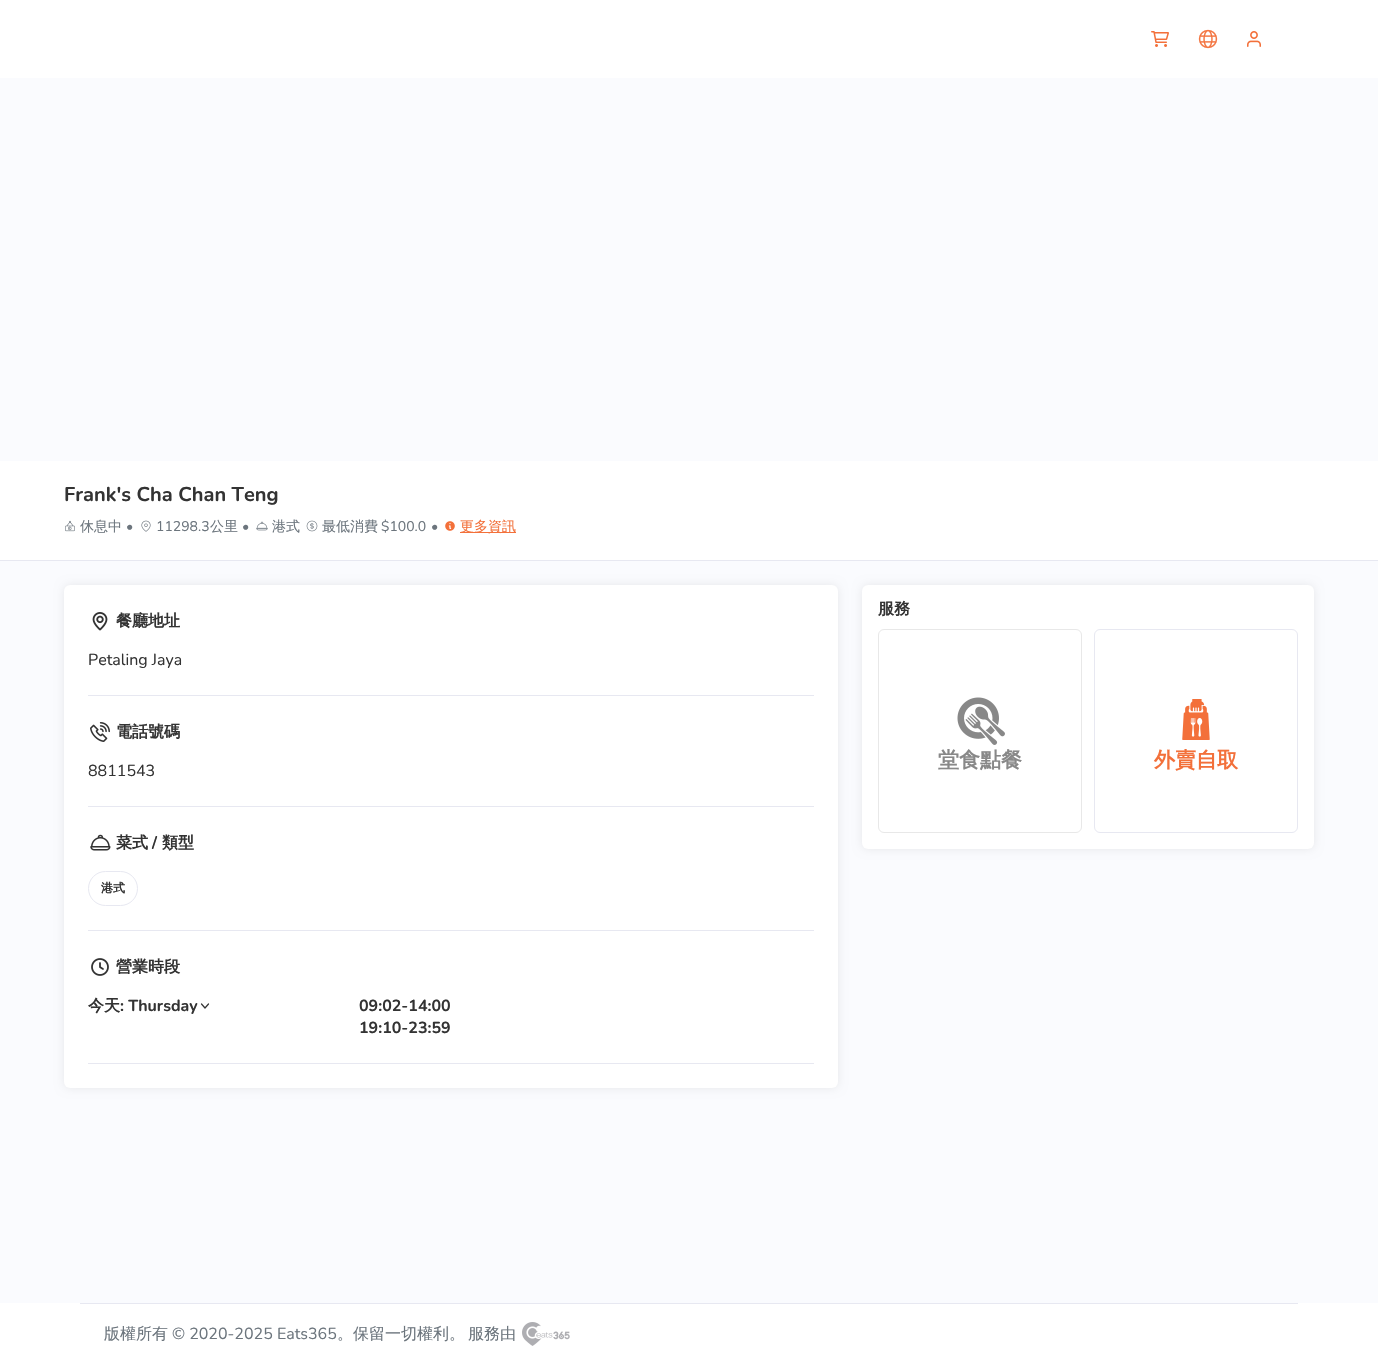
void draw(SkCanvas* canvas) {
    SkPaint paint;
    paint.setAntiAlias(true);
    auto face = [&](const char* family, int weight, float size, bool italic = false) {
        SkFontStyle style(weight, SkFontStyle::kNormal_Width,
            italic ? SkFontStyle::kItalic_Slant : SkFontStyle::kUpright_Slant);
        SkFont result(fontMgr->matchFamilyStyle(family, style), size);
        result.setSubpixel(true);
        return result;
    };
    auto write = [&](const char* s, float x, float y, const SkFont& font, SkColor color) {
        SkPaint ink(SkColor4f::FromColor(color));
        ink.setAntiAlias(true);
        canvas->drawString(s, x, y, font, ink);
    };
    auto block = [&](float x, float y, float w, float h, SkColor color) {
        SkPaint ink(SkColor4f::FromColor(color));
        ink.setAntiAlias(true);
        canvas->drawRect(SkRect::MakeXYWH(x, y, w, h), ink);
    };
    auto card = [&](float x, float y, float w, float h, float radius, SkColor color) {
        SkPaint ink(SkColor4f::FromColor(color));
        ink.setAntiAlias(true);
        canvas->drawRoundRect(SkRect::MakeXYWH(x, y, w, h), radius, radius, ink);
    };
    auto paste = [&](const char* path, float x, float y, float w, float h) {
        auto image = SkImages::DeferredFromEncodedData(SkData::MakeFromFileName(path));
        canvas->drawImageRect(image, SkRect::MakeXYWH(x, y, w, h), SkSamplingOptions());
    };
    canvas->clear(SkColorSetRGB(250, 251, 254));
    block(0, 0, 1378, 78, SK_ColorWHITE);
    paste("pic1.png", 1151, 31, 18, 16);
    paste("pic2.png", 1198, 29, 20, 20);
    paste("pic3.png", 1247, 31, 14, 16);
    block(0, 461, 1378, 99, SK_ColorWHITE);
    block(0, 560, 1378, 1, SkColorSetRGB(231, 232, 241));
    auto kFont1 = face("Nunito", 700, 20);
    write("Frank's Cha Chan Teng", 64, 501, kFont1, SkColorSetRGB(51, 51, 51));
    paste("pic4.png", 65, 520, 10, 12);
    auto kFont2 = face("WenQuanYi Zen Hei", 500, 14);
    write("休息中", 80, 531, kFont2, SkColorSetRGB(108, 117, 125));
    auto kFont3 = face("Nunito", 400, 14);
    write("•", 126, 531, kFont3, SkColorSetRGB(108, 117, 125));
    paste("pic5.png", 141, 520, 10, 12);
    write("11298.3", 156, 531, kFont3, SkColorSetRGB(108, 117, 125));
    write("公里", 210, 531, kFont2, SkColorSetRGB(108, 117, 125));
    write("•", 242, 531, kFont3, SkColorSetRGB(108, 117, 125));
    paste("pic6.png", 256, 521, 12, 10);
    write("港式", 272, 531, kFont2, SkColorSetRGB(108, 117, 125));
    paste("pic7.png", 306, 520, 12, 12);
    write("最低消費", 322, 531, kFont2, SkColorSetRGB(108, 117, 125));
    write("$100.0", 381, 531, kFont3, SkColorSetRGB(108, 117, 125));
    write("•", 431, 531, kFont3, SkColorSetRGB(108, 117, 125));
    paste("pic8.png", 445, 521, 10, 10);
    block(460, 532, 56, 1, SkColorSetRGB(243, 112, 58));
    write("更多資訊", 460, 531, kFont2, SkColorSetRGB(243, 112, 58));
    paint.setColor(SkColorSetARGB(20, 0, 0, 0));
    paint.setMaskFilter(SkMaskFilter::MakeBlur(kNormal_SkBlurStyle, 5));
    canvas->drawRoundRect(SkRect::MakeXYWH(64, 585, 774, 503), 6, 6, paint);
    paint.setMaskFilter(nullptr);
    card(64, 585, 774, 503, 6, SK_ColorWHITE);
    block(88, 695, 726, 1, SkColorSetRGB(231, 232, 241));
    paste("pic9.png", 92, 612, 16, 19);
    auto kFont4 = face("WenQuanYi Zen Hei", 700, 16);
    write("餐廳地址", 116, 626, kFont4, SkColorSetRGB(51, 51, 51));
    auto kFont5 = face("Nunito", 400, 16);
    write("Petaling Jaya", 88, 665, kFont5, SkColorSetRGB(51, 51, 51));
    block(88, 806, 726, 1, SkColorSetRGB(231, 232, 241));
    paste("pic10.png", 90, 722, 20, 20);
    write("電話號碼", 116, 737, kFont4, SkColorSetRGB(51, 51, 51));
    write("8811543", 88, 776, kFont5, SkColorSetRGB(51, 51, 51));
    block(88, 930, 726, 1, SkColorSetRGB(231, 232, 241));
    paste("pic11.png", 90, 834, 21, 17);
    write("菜式", 116, 848, kFont4, SkColorSetRGB(51, 51, 51));
    auto kFont6 = face("Nunito", 700, 16);
    write("/", 152, 848, kFont6, SkColorSetRGB(51, 51, 51));
    write("類型", 162, 848, kFont4, SkColorSetRGB(51, 51, 51));
    paint.setStyle(SkPaint::kStroke_Style);
    paint.setStrokeWidth(1);
    paint.setColor(SkColorSetRGB(231, 232, 241));
    canvas->drawRoundRect(SkRect::MakeXYWH(88.5f, 871.5f, 49, 34), 17, 17, paint);
    auto kFont7 = face("WenQuanYi Zen Hei", 700, 12);
    write("港式", 101, 892, kFont7, SkColorSetRGB(51, 51, 51));
    block(88, 1063, 726, 1, SkColorSetRGB(231, 232, 241));
    paste("pic12.png", 91, 958, 18, 18);
    write("營業時段", 116, 972, kFont4, SkColorSetRGB(51, 51, 51));
    write("今天", 88, 1011, kFont4, SkColorSetRGB(51, 51, 51));
    write(": Thursday", 120, 1011, kFont6, SkColorSetRGB(51, 51, 51));
    paint.setStrokeWidth(1.2f);
    paint.setStrokeCap(SkPaint::kRound_Cap);
    paint.setStrokeJoin(SkPaint::kRound_Join);
    paint.setColor(SkColorSetRGB(51, 51, 51));
    canvas->drawPath(SkPathBuilder().moveTo(201.5f, 1004).lineTo(205, 1008).lineTo(208.5f, 1004).detach(), paint);
    write("09:02-14:00", 359, 1011, kFont6, SkColorSetRGB(51, 51, 51));
    write("19:10-23:59", 359, 1033, kFont6, SkColorSetRGB(51, 51, 51));
    paint.setStyle(SkPaint::kFill_Style);
    paint.setColor(SkColorSetARGB(20, 0, 0, 0));
    paint.setMaskFilter(SkMaskFilter::MakeBlur(kNormal_SkBlurStyle, 5));
    canvas->drawRoundRect(SkRect::MakeXYWH(862, 585, 452, 264), 6, 6, paint);
    paint.setMaskFilter(nullptr);
    card(862, 585, 452, 264, 6, SK_ColorWHITE);
    write("服務", 878, 614, kFont4, SkColorSetRGB(51, 51, 51));
    paint.setStyle(SkPaint::kStroke_Style);
    paint.setStrokeWidth(1);
    paint.setStrokeCap(SkPaint::kButt_Cap);
    paint.setStrokeJoin(SkPaint::kMiter_Join);
    paint.setColor(SkColorSetRGB(232, 232, 232));
    canvas->drawRoundRect(SkRect::MakeXYWH(878.5f, 629.5f, 203, 203), 5.5f, 5.5f, paint);
    paste("pic13.png", 957, 697, 48, 48);
    auto kFont8 = face("WenQuanYi Zen Hei", 700, 21);
    write("堂食點餐", 938, 767, kFont8, SkColorSetRGB(136, 136, 136));
    paint.setColor(SkColorSetRGB(231, 232, 241));
    canvas->drawRoundRect(SkRect::MakeXYWH(1094.5f, 629.5f, 203, 203), 5.5f, 5.5f, paint);
    paste("pic14.png", 1182, 699, 28, 41);
    write("外賣自取", 1154, 767, kFont8, SkColorSetRGB(243, 112, 58));
    block(0, 1303, 1378, 61, SK_ColorWHITE);
    block(80, 1303, 1218, 1, SkColorSetRGB(231, 232, 241));
    auto kFont9 = face("WenQuanYi Zen Hei", 500, 16);
    write("版權所有", 104, 1339, kFont9, SkColorSetRGB(108, 117, 125));
    write("© 2020-2025 Eats365", 172, 1339, kFont5, SkColorSetRGB(108, 117, 125));
    write("。保留一切權利。", 337, 1339, kFont9, SkColorSetRGB(108, 117, 125));
    write("服務由", 468, 1339, kFont9, SkColorSetRGB(108, 117, 125));
    paste("pic15.png", 522, 1322, 48, 24);
}
